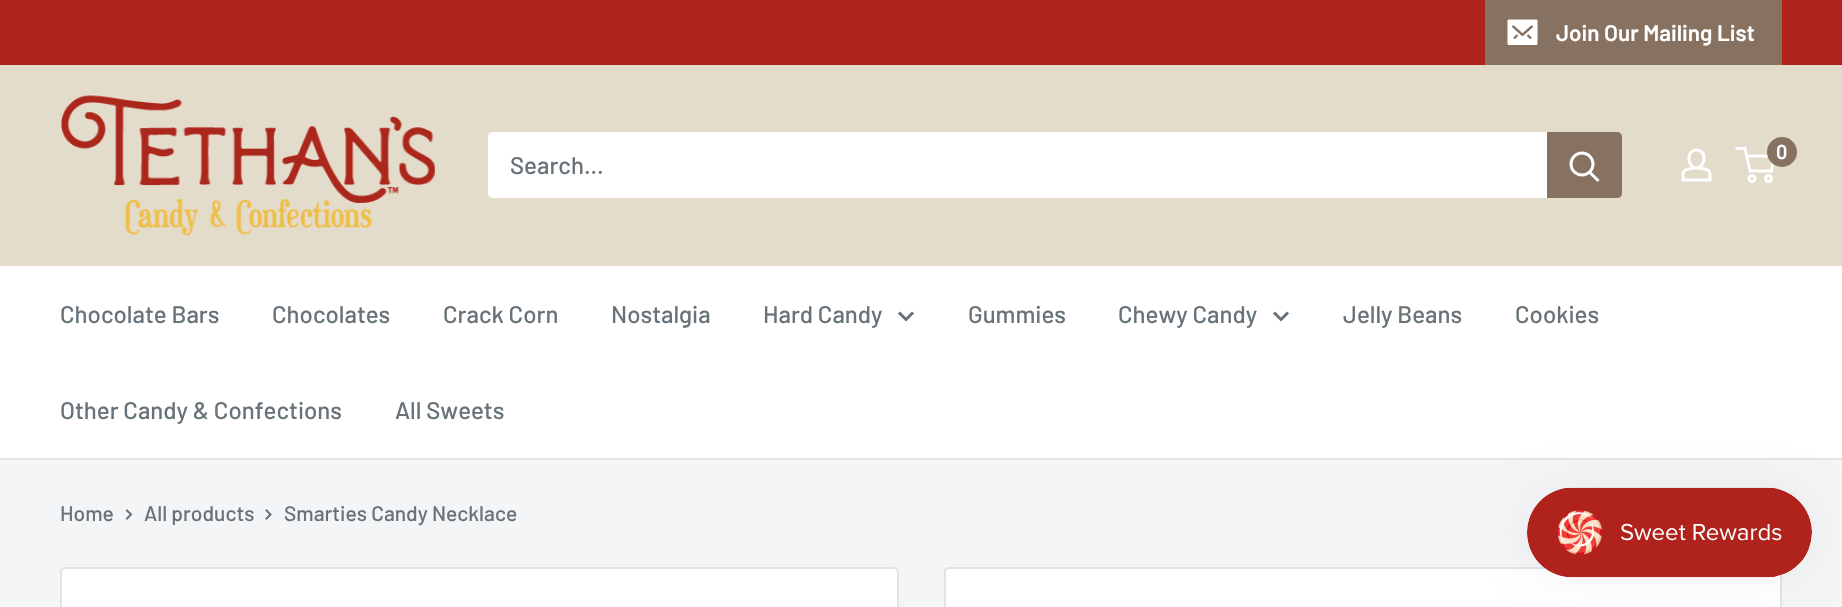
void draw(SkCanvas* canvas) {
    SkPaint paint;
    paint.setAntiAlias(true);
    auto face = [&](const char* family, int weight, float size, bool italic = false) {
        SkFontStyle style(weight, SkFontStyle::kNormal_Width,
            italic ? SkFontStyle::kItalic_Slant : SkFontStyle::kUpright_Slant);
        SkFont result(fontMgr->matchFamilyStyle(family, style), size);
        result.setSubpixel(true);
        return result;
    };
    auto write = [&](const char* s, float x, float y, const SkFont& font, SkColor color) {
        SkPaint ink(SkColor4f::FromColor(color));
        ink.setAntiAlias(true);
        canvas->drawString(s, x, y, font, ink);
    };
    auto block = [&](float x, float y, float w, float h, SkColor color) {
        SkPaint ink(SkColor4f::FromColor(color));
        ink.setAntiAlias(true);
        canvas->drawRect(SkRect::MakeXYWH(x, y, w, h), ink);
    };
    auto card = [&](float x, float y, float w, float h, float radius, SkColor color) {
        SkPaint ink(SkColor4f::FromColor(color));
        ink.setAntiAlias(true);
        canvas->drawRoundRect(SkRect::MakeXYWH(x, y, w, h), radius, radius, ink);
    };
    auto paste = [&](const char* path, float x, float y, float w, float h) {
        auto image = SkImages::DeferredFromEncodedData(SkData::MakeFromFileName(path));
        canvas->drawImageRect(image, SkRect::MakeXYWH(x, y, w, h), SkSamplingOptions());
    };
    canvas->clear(SkColorSetRGB(243, 245, 246));
    block(0, 0, 1842, 65, SkColorSetRGB(175, 35, 28));
    block(1485, 0, 297, 65, SkColorSetRGB(135, 114, 98));
    paste("pic1.png", 1507, 19, 31, 26);
    auto kFont1 = face("Barlow", 600, 22.5f);
    write("Join Our Mailing List", 1556, 41, kFont1, SK_ColorWHITE);
    block(0, 65, 1842, 201, SkColorSetRGB(228, 220, 202));
    paste("pic2.png", 61, 95, 374, 141);
    paste("pic3.png", 1681, 148, 31, 34);
    paint.setStyle(SkPaint::kStroke_Style);
    paint.setStrokeWidth(3);
    paint.setColor(SK_ColorWHITE);
    canvas->drawCircle(1752, 178.5f, 3, paint);
    canvas->drawCircle(1768.5f, 178.5f, 3, paint);
    canvas->drawPath(SkPathBuilder().moveTo(1746.5f, 156).lineTo(1774, 156).lineTo(1771.5f, 171).lineTo(1750, 171).lineTo(1745, 148.5f).lineTo(1735.5f, 148.5f).detach(), paint);
    paint.setStyle(SkPaint::kFill_Style);
    paint.setColor(SkColorSetRGB(135, 114, 98));
    canvas->drawCircle(1782, 152, 15, paint);
    auto kFont2 = face("Barlow", 600, 20);
    write("0", 1776, 159, kFont2, SK_ColorWHITE);
    card(488, 132, 1134, 66, 5, SK_ColorWHITE);
    auto kFont3 = face("Barlow", 500, 24);
    write("Search...", 510, 174, kFont3, SkColorSetRGB(103, 114, 121));
    canvas->drawPath(SkPathBuilder().moveTo(1547, 132).lineTo(1617, 132).cubicTo(1620, 132, 1622, 134, 1622, 137).lineTo(1622, 193).cubicTo(1622, 196, 1620, 198, 1617, 198).lineTo(1547, 198).close().detach(), paint);
    paint.setStyle(SkPaint::kStroke_Style);
    paint.setStrokeCap(SkPaint::kSquare_Cap);
    paint.setColor(SK_ColorWHITE);
    canvas->drawPath(SkPathBuilder().moveTo(1597.5f, 180).lineTo(1590, 172.5f).detach(), paint);
    paint.setStrokeCap(SkPaint::kButt_Cap);
    canvas->drawCircle(1582, 164, 11, paint);
    block(0, 266, 1842, 192, SK_ColorWHITE);
    block(0, 458, 1842, 2, SkColorSetRGB(225, 227, 228));
    write("Chocolate Bars", 60, 323, kFont3, SkColorSetRGB(103, 114, 121));
    write("Chocolates", 272, 323, kFont3, SkColorSetRGB(103, 114, 121));
    write("Crack Corn", 443, 323, kFont3, SkColorSetRGB(103, 114, 121));
    write("Nostalgia", 611, 323, kFont3, SkColorSetRGB(103, 114, 121));
    write("Hard Candy", 763, 323, kFont3, SkColorSetRGB(103, 114, 121));
    paint.setStrokeCap(SkPaint::kSquare_Cap);
    paint.setColor(SkColorSetRGB(103, 114, 121));
    canvas->drawPath(SkPathBuilder().moveTo(912, 313.5f).lineTo(906, 319.5f).lineTo(900, 313.5f).detach(), paint);
    write("Gummies", 968, 323, kFont3, SkColorSetRGB(103, 114, 121));
    write("Chewy Candy", 1118, 323, kFont3, SkColorSetRGB(103, 114, 121));
    canvas->drawPath(SkPathBuilder().moveTo(1287, 313.5f).lineTo(1281, 319.5f).lineTo(1275, 313.5f).detach(), paint);
    write("Jelly Beans", 1343, 323, kFont3, SkColorSetRGB(103, 114, 121));
    write("Cookies", 1515, 323, kFont3, SkColorSetRGB(103, 114, 121));
    write("Other Candy & Confections", 60, 419, kFont3, SkColorSetRGB(103, 114, 121));
    write("All Sweets", 395, 419, kFont3, SkColorSetRGB(103, 114, 121));
    auto kFont4 = face("Barlow", 500, 21);
    write("Home", 60, 521, kFont4, SkColorSetRGB(103, 114, 121));
    paint.setStrokeWidth(2);
    canvas->drawPath(SkPathBuilder().moveTo(127, 510.5f).lineTo(131, 514.5f).lineTo(127, 518.5f).detach(), paint);
    write("All products", 144, 521, kFont4, SkColorSetRGB(103, 114, 121));
    canvas->drawPath(SkPathBuilder().moveTo(266.5f, 510.5f).lineTo(270.5f, 514.5f).lineTo(266.5f, 518.5f).detach(), paint);
    write("Smarties Candy Necklace", 284, 521, kFont4, SkColorSetRGB(103, 114, 121));
    paint.setStyle(SkPaint::kFill_Style);
    paint.setColor(SK_ColorWHITE);
    canvas->drawRoundRect(SkRect::MakeXYWH(61, 568, 837, 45), 4, 4, paint);
    paint.setStyle(SkPaint::kStroke_Style);
    paint.setStrokeCap(SkPaint::kButt_Cap);
    paint.setColor(SkColorSetRGB(225, 227, 228));
    canvas->drawRoundRect(SkRect::MakeXYWH(61, 568, 837, 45), 4, 4, paint);
    paint.setStyle(SkPaint::kFill_Style);
    paint.setColor(SK_ColorWHITE);
    canvas->drawRoundRect(SkRect::MakeXYWH(945, 568, 836, 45), 4, 4, paint);
    paint.setStyle(SkPaint::kStroke_Style);
    paint.setColor(SkColorSetRGB(225, 227, 228));
    canvas->drawRoundRect(SkRect::MakeXYWH(945, 568, 836, 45), 4, 4, paint);
    paint.setStyle(SkPaint::kFill_Style);
    paint.setColor(SkColorSetARGB(13, 0, 0, 0));
    paint.setMaskFilter(SkMaskFilter::MakeBlur(kNormal_SkBlurStyle, 19));
    canvas->drawRoundRect(SkRect::MakeXYWH(1527, 488, 285, 90), 45, 45, paint);
    paint.setMaskFilter(nullptr);
    paste("pic4.png", 1527, 487, 285, 91);
}
